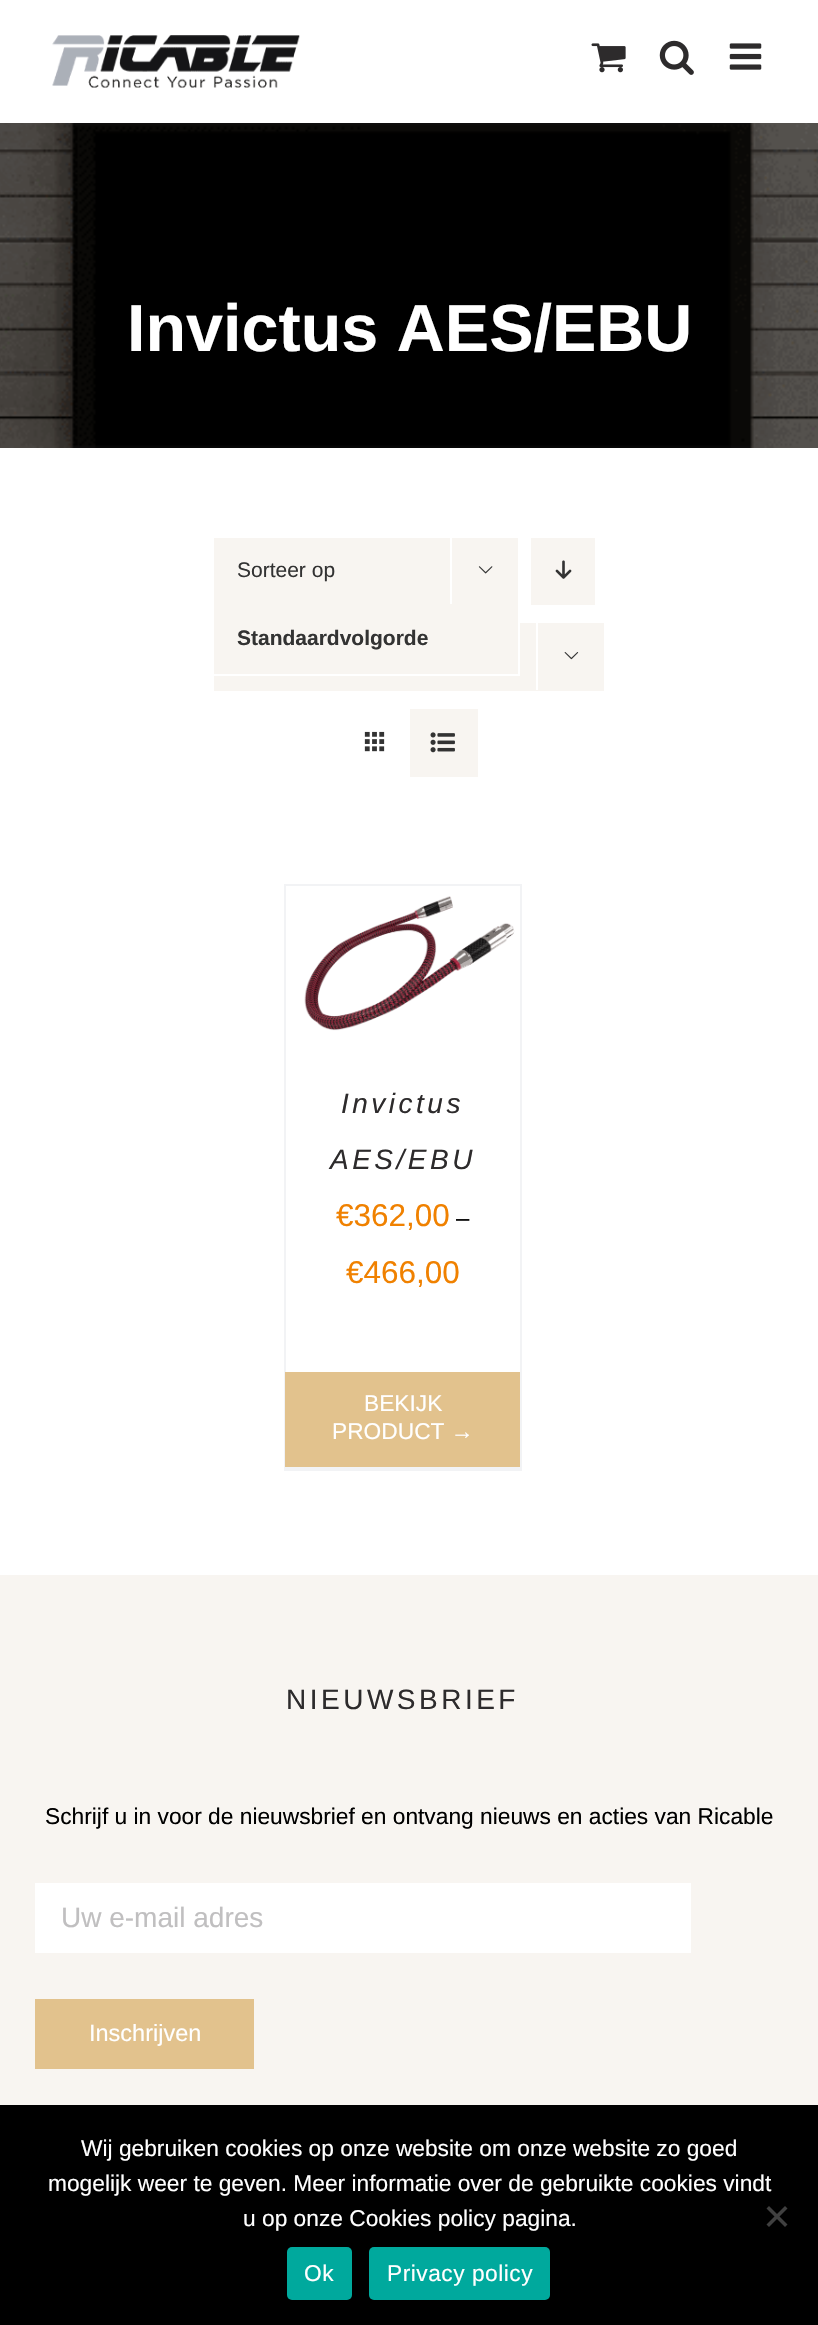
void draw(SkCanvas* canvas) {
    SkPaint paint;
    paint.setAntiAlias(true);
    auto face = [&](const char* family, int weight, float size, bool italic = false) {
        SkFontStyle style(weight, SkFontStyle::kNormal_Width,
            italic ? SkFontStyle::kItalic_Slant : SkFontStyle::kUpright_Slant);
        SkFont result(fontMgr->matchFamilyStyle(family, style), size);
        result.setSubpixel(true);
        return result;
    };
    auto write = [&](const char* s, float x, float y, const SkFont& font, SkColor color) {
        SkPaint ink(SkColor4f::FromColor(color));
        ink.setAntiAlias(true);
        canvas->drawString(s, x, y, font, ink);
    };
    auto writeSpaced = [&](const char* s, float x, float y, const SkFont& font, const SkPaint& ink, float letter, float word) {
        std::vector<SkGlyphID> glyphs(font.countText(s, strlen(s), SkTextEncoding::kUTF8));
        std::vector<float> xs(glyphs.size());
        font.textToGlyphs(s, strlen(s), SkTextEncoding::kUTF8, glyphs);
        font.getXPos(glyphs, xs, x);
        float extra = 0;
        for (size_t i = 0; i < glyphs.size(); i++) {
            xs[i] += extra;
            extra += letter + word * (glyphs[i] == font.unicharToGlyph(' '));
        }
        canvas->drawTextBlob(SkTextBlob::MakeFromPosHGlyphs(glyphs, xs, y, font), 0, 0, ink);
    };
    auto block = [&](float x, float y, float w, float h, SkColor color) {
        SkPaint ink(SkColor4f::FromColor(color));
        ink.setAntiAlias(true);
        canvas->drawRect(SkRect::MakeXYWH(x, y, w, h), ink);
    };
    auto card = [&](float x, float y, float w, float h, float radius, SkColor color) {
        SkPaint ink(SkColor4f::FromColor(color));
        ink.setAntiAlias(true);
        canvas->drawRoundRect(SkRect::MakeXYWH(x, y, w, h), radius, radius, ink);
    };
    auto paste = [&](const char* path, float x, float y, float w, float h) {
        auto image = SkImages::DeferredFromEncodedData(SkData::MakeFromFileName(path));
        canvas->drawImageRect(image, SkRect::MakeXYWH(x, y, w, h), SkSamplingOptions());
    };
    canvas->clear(SK_ColorWHITE);
    paste("pic1.png", 52, 35, 248, 53);
    paste("pic2.png", 591, 43, 35, 30);
    paste("pic3.png", 659, 40, 35, 35);
    paste("pic4.png", 729, 43, 33, 27);
    paste("pic5.png", 0, 123, 818, 325);
    auto kFont1 = face("Liberation Sans", 700, 66.5f);
    write("Invictus AES/EBU", 127, 351, kFont1, SK_ColorWHITE);
    block(214, 538, 304, 85, SkColorSetRGB(248, 245, 241));
    block(214, 623, 390, 68, SkColorSetRGB(248, 245, 241));
    paint.setStyle(SkPaint::kStroke_Style);
    paint.setStrokeWidth(2);
    paint.setColor(SK_ColorWHITE);
    canvas->drawRect(SkRect::MakeXYWH(213, 537, 306, 138), paint);
    auto kFont2 = face("Liberation Sans", 400, 21);
    write("Sorteer op", 237, 577, kFont2, SkColorSetRGB(51, 51, 51));
    auto kFont3 = face("Liberation Sans", 700, 21);
    write("Standaardvolgorde", 237, 645, kFont3, SkColorSetRGB(51, 51, 51));
    block(450, 536, 2, 68, SK_ColorWHITE);
    paste("pic6.png", 478, 566, 15, 8);
    block(531, 538, 64, 67, SkColorSetRGB(248, 245, 241));
    paste("pic7.png", 555, 560, 17, 19);
    block(536, 621, 2, 69, SK_ColorWHITE);
    paste("pic8.png", 564, 652, 15, 8);
    paste("pic9.png", 364, 731, 21, 21);
    block(410, 709, 68, 68, SkColorSetRGB(248, 245, 241));
    paste("pic10.png", 430, 732, 25, 21);
    block(284, 884, 238, 2, SkColorSetRGB(242, 243, 245));
    block(520, 884, 2, 586, SkColorSetRGB(242, 243, 245));
    block(284, 1467, 238, 4, SkColorSetRGB(242, 243, 245));
    block(284, 884, 2, 586, SkColorSetRGB(242, 243, 245));
    paste("pic11.png", 304, 896, 211, 135);
    auto kFont4 = face("Liberation Sans", 400, 28, true);
    paint.setStyle(SkPaint::kFill_Style);
    paint.setColor(SkColorSetRGB(45, 43, 44));
    writeSpaced("Invictus", 341, 1113, kFont4, paint, 3.5f, 0);
    writeSpaced("AES/EBU", 330, 1169, kFont4, paint, 3.5f, 0);
    auto kFont5 = face("Liberation Sans", 400, 31.5f);
    write("€362,00", 336, 1226, kFont5, SkColorSetRGB(240, 129, 0));
    auto kFont6 = face("Liberation Sans", 400, 24);
    write("–", 456, 1226, kFont6, SK_ColorBLACK);
    write("€466,00", 346, 1283, kFont5, SkColorSetRGB(240, 129, 0));
    block(285, 1372, 235, 95, SkColorSetRGB(226, 194, 141));
    auto kFont7 = face("Liberation Sans", 400, 22.75f);
    write("BEKIJK", 364, 1411, kFont7, SK_ColorWHITE);
    write("PRODUCT →", 332, 1439, kFont7, SK_ColorWHITE);
    block(0, 1575, 818, 530, SkColorSetRGB(248, 245, 241));
    auto kFont8 = face("Liberation Sans", 400, 28);
    writeSpaced("NIEUWSBRIEF", 286, 1709, kFont8, paint, 3.5f, 0);
    write("Schrijf u in voor de nieuwsbrief en ontvang nieuws en acties van Ricable", 45, 1824, kFont7, SK_ColorBLACK);
    block(35, 1883, 656, 70, SK_ColorWHITE);
    write("Uw e-mail adres", 61, 1927, kFont8, SkColorSetRGB(192, 191, 192));
    block(35, 1999, 219, 70, SkColorSetRGB(226, 194, 141));
    auto kFont9 = face("Liberation Sans", 400, 23.5f);
    write("Inschrijven", 89, 2041, kFont9, SK_ColorWHITE);
    block(0, 2105, 818, 220, SK_ColorBLACK);
    write("Wij gebruiken cookies op onze website om onze website zo goed", 81, 2156, kFont7, SK_ColorWHITE);
    write("mogelijk weer te geven. Meer informatie over de gebruikte cookies vindt", 48, 2191, kFont7, SK_ColorWHITE);
    write("u op onze Cookies policy pagina.", 243, 2226, kFont7, SK_ColorWHITE);
    paint.setColor(SkColorSetRGB(64, 64, 64));
    canvas->drawPath(SkPathBuilder().moveTo(785, 2206).lineTo(787.5f, 2208.5f).lineTo(769, 2227).lineTo(766.5f, 2224.5f).close().detach(), paint);
    canvas->drawPath(SkPathBuilder().moveTo(766.5f, 2208.5f).lineTo(769, 2206).lineTo(787.5f, 2224.5f).lineTo(785, 2227).close().detach(), paint);
    card(287, 2247, 65, 53, 5, SkColorSetRGB(0, 169, 157));
    paint.setColor(SK_ColorWHITE);
    writeSpaced("Ok", 304, 2281, kFont7, paint, 0.5f, 0);
    card(369, 2247, 181, 53, 5, SkColorSetRGB(0, 169, 157));
    writeSpaced("Privacy policy", 387, 2281, kFont7, paint, 0.5f, 0);
}
